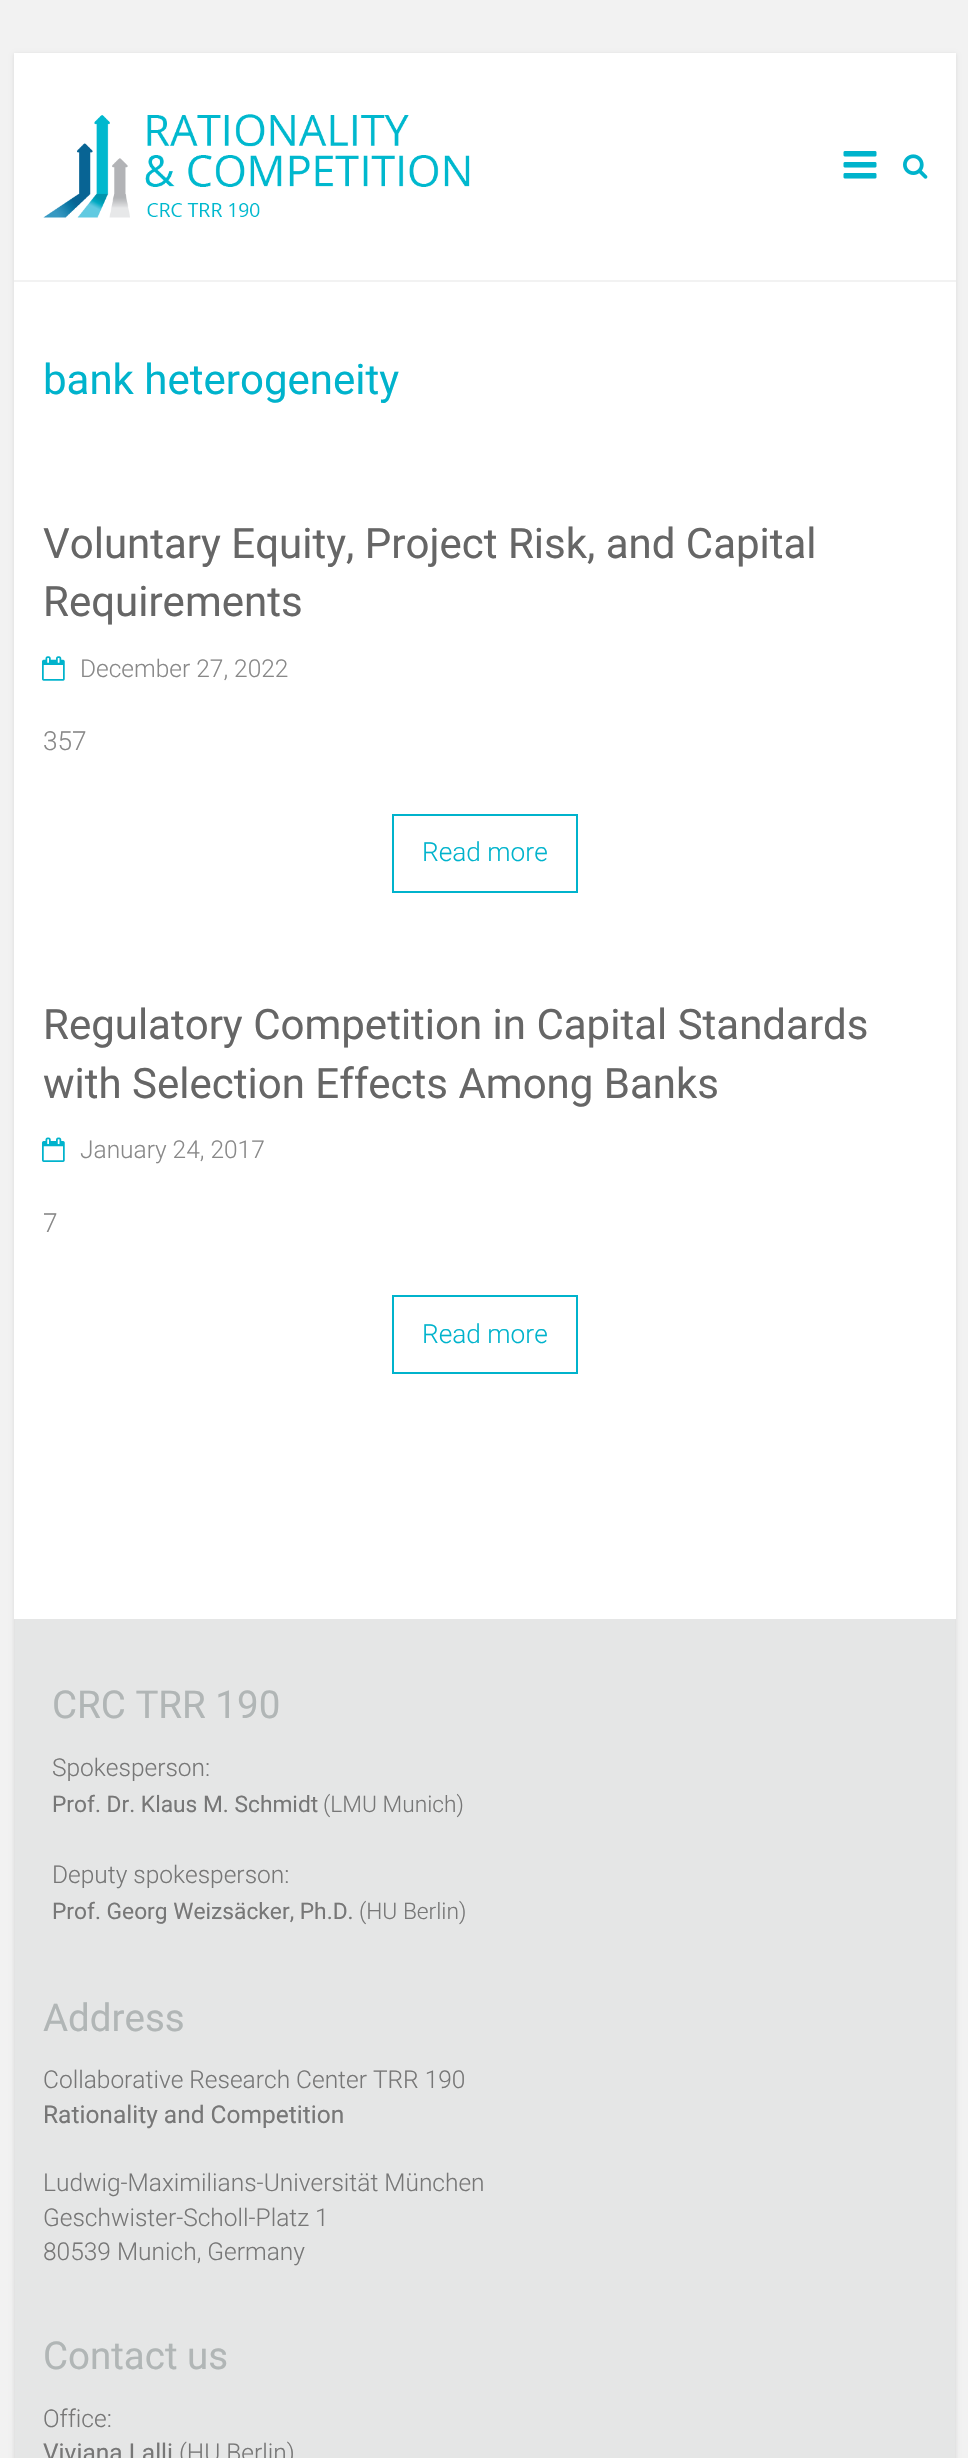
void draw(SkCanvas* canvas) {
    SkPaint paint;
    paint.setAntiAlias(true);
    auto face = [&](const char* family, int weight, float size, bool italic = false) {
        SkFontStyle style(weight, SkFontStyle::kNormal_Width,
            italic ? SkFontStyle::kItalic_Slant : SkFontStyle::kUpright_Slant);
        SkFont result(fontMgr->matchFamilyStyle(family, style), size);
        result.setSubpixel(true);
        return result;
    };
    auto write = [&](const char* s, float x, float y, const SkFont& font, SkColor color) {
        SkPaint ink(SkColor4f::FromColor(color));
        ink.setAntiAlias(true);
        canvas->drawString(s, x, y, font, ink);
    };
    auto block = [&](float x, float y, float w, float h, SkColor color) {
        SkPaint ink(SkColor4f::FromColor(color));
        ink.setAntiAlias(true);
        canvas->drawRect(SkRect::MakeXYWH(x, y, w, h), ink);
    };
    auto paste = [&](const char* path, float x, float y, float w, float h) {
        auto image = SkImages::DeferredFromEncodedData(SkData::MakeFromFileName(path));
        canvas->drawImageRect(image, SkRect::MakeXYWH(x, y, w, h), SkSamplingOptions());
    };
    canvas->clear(SkColorSetRGB(242, 242, 242));
    paint.setColor(SkColorSetARGB(26, 0, 0, 0));
    paint.setMaskFilter(SkMaskFilter::MakeBlur(kNormal_SkBlurStyle, 2));
    canvas->drawRect(SkRect::MakeXYWH(14, 54, 942, 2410), paint);
    paint.setMaskFilter(nullptr);
    block(14, 53, 942, 1566, SK_ColorWHITE);
    block(14, 280, 942, 2, SkColorSetRGB(242, 242, 242));
    paste("pic1.png", 43, 114, 427, 104);
    paste("pic2.png", 843, 151, 34, 28);
    paste("pic3.png", 903, 154, 25, 25);
    auto kFont1 = face("Roboto", 400, 42);
    write("bank heterogeneity", 43, 394, kFont1, SkColorSetRGB(0, 179, 204));
    write("Voluntary Equity, Project Risk, and Capital", 43, 558, kFont1, SkColorSetRGB(102, 102, 102));
    write("Requirements", 43, 616, kFont1, SkColorSetRGB(102, 102, 102));
    paste("pic4.png", 42, 656, 23, 25);
    auto kFont2 = face("Roboto", 300, 24.5f);
    write("December 27, 2022", 80, 677, kFont2, SkColorSetRGB(136, 136, 136));
    auto kFont3 = face("Roboto", 300, 26.25f);
    write("357", 43, 750, kFont3, SkColorSetRGB(136, 136, 136));
    paint.setStyle(SkPaint::kStroke_Style);
    paint.setStrokeWidth(2);
    paint.setColor(SkColorSetRGB(0, 179, 204));
    canvas->drawRect(SkRect::MakeXYWH(393, 815, 184, 77), paint);
    write("Read more", 422, 861, kFont3, SkColorSetRGB(0, 179, 204));
    write("Regulatory Competition in Capital Standards", 43, 1039, kFont1, SkColorSetRGB(102, 102, 102));
    write("with Selection Effects Among Banks", 43, 1098, kFont1, SkColorSetRGB(102, 102, 102));
    paste("pic5.png", 42, 1137, 23, 25);
    write("January 24, 2017", 80, 1158, kFont2, SkColorSetRGB(136, 136, 136));
    write("7", 43, 1232, kFont3, SkColorSetRGB(136, 136, 136));
    canvas->drawRect(SkRect::MakeXYWH(393, 1296, 184, 77), paint);
    write("Read more", 422, 1343, kFont3, SkColorSetRGB(0, 179, 204));
    block(15, 1619, 940, 839, SkColorSetRGB(229, 230, 230));
    auto kFont4 = face("Roboto", 400, 38.5f);
    write("CRC TRR 190", 52, 1718, kFont4, SkColorSetRGB(177, 182, 182));
    write("Spokesperson:", 52, 1776, kFont2, SkColorSetRGB(119, 119, 119));
    auto kFont5 = face("Roboto", 400, 22.75f);
    write("Prof. Dr. Klaus M. Schmidt", 52, 1812, kFont5, SkColorSetRGB(119, 119, 119));
    auto kFont6 = face("Roboto", 300, 22.75f);
    write("(LMU Munich)", 323, 1812, kFont6, SkColorSetRGB(119, 119, 119));
    write("Deputy spokesperson:", 52, 1883, kFont2, SkColorSetRGB(119, 119, 119));
    write("Prof. Georg Weizsäcker, Ph.D.", 52, 1919, kFont5, SkColorSetRGB(119, 119, 119));
    write("(HU Berlin)", 359, 1919, kFont6, SkColorSetRGB(119, 119, 119));
    write("Address", 43, 2031, kFont4, SkColorSetRGB(177, 182, 182));
    write("Collaborative Research Center TRR 190", 43, 2088, kFont2, SkColorSetRGB(119, 119, 119));
    auto kFont7 = face("Roboto", 400, 24.5f);
    write("Rationality and Competition", 43, 2123, kFont7, SkColorSetRGB(119, 119, 119));
    write("Ludwig-Maximilians-Universität München", 43, 2191, kFont2, SkColorSetRGB(119, 119, 119));
    write("Geschwister-Scholl-Platz 1", 43, 2226, kFont2, SkColorSetRGB(119, 119, 119));
    write("80539 Munich, Germany", 43, 2260, kFont2, SkColorSetRGB(119, 119, 119));
    write("Contact us", 43, 2369, kFont4, SkColorSetRGB(177, 182, 182));
    write("Office:", 43, 2427, kFont2, SkColorSetRGB(119, 119, 119));
    write("Viviana Lalli", 43, 2461, kFont7, SkColorSetRGB(119, 119, 119));
    write("(HU Berlin)", 179, 2461, kFont2, SkColorSetRGB(119, 119, 119));
}
